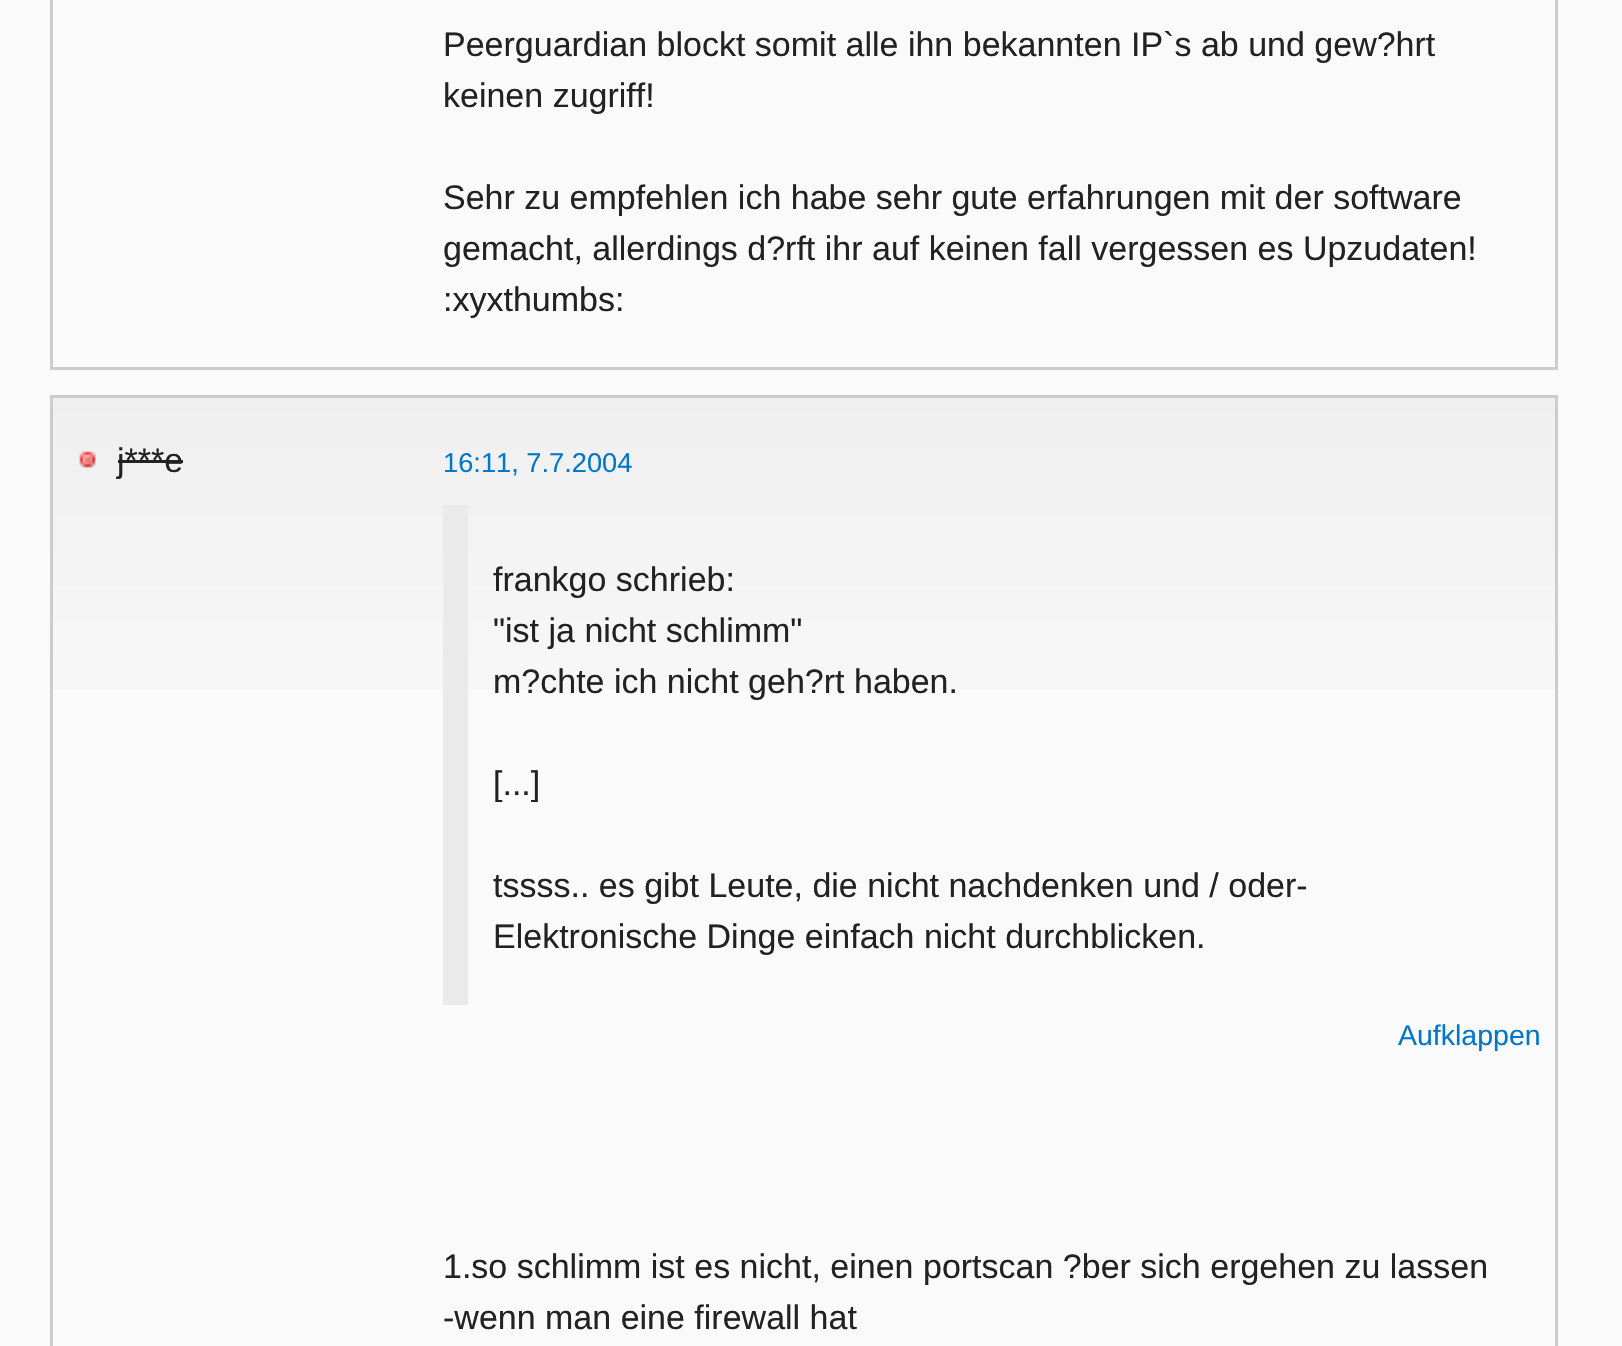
void draw(SkCanvas* canvas) {
    SkPaint paint;
    paint.setAntiAlias(true);
    auto face = [&](const char* family, int weight, float size, bool italic = false) {
        SkFontStyle style(weight, SkFontStyle::kNormal_Width,
            italic ? SkFontStyle::kItalic_Slant : SkFontStyle::kUpright_Slant);
        SkFont result(fontMgr->matchFamilyStyle(family, style), size);
        result.setSubpixel(true);
        return result;
    };
    auto write = [&](const char* s, float x, float y, const SkFont& font, SkColor color) {
        SkPaint ink(SkColor4f::FromColor(color));
        ink.setAntiAlias(true);
        canvas->drawString(s, x, y, font, ink);
    };
    auto block = [&](float x, float y, float w, float h, SkColor color) {
        SkPaint ink(SkColor4f::FromColor(color));
        ink.setAntiAlias(true);
        canvas->drawRect(SkRect::MakeXYWH(x, y, w, h), ink);
    };
    auto paste = [&](const char* path, float x, float y, float w, float h) {
        auto image = SkImages::DeferredFromEncodedData(SkData::MakeFromFileName(path));
        canvas->drawImageRect(image, SkRect::MakeXYWH(x, y, w, h), SkSamplingOptions());
    };
    canvas->clear(SkColorSetRGB(250, 250, 250));
    paint.setStyle(SkPaint::kStroke_Style);
    paint.setStrokeWidth(3);
    paint.setColor(SkColorSetRGB(204, 204, 204));
    canvas->drawRect(SkRect::MakeXYWH(51.5f, -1.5f, 1505, 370), paint);
    auto kFont1 = face("Liberation Sans", 400, 34);
    write("Peerguardian blockt somit alle ihn bekannten IP`s ab und gew?hrt", 443, 56, kFont1, SkColorSetRGB(34, 34, 34));
    write("keinen zugriff!", 443, 107, kFont1, SkColorSetRGB(34, 34, 34));
    write("Sehr zu empfehlen ich habe sehr gute erfahrungen mit der software", 443, 209, kFont1, SkColorSetRGB(34, 34, 34));
    write("gemacht, allerdings d?rft ihr auf keinen fall vergessen es Upzudaten!", 443, 260, kFont1, SkColorSetRGB(34, 34, 34));
    write(":xyxthumbs:", 443, 311, kFont1, SkColorSetRGB(34, 34, 34));
    paint.setStyle(SkPaint::kFill_Style);
    {
        const SkColor colors[] = {SkColorSetRGB(239, 239, 239), SkColorSetRGB(250, 250, 250)};
        const float stops[] = {0, 0.21f};
        const SkPoint ends[] = {{804, 397}, {804, 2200}};
        paint.setShader(SkGradientShader::MakeLinear(ends, colors, stops, 2, SkTileMode::kClamp));
        paint.setAlpha(255);
    }
    canvas->drawRect(SkRect::MakeXYWH(53, 398, 1502, 292), paint);
    paint.setStyle(SkPaint::kStroke_Style);
    paint.setShader(nullptr);
    paint.setColor(SkColorSetRGB(204, 204, 204));
    canvas->drawRect(SkRect::MakeXYWH(51.5f, 396.5f, 1505, 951), paint);
    paste("pic1.png", 79, 451, 17, 17);
    write("j***e", 117, 472, kFont1, SkColorSetRGB(34, 34, 34));
    block(118, 460, 65, 3, SkColorSetRGB(34, 34, 34));
    auto kFont2 = face("Liberation Sans", 400, 27.25f);
    write("16:11, 7.7.2004", 443, 472, kFont2, SkColorSetRGB(0, 119, 204));
    block(443, 505, 25, 500, SkColorSetRGB(234, 234, 234));
    write("frankgo schrieb:", 493, 591, kFont1, SkColorSetRGB(34, 34, 34));
    write("\"ist ja nicht schlimm\"", 493, 642, kFont1, SkColorSetRGB(34, 34, 34));
    write("m?chte ich nicht geh?rt haben.", 493, 693, kFont1, SkColorSetRGB(34, 34, 34));
    write("[...]", 493, 795, kFont1, SkColorSetRGB(34, 34, 34));
    write("tssss.. es gibt Leute, die nicht nachdenken und / oder-", 493, 897, kFont1, SkColorSetRGB(34, 34, 34));
    write("Elektronische Dinge einfach nicht durchblicken.", 493, 948, kFont1, SkColorSetRGB(34, 34, 34));
    auto kFont3 = face("Liberation Sans", 400, 28.5f);
    write("Aufklappen", 1398, 1045, kFont3, SkColorSetRGB(0, 119, 204));
    write("1.so schlimm ist es nicht, einen portscan ?ber sich ergehen zu lassen", 443, 1278, kFont1, SkColorSetRGB(34, 34, 34));
    write("-wenn man eine firewall hat", 443, 1329, kFont1, SkColorSetRGB(34, 34, 34));
}
